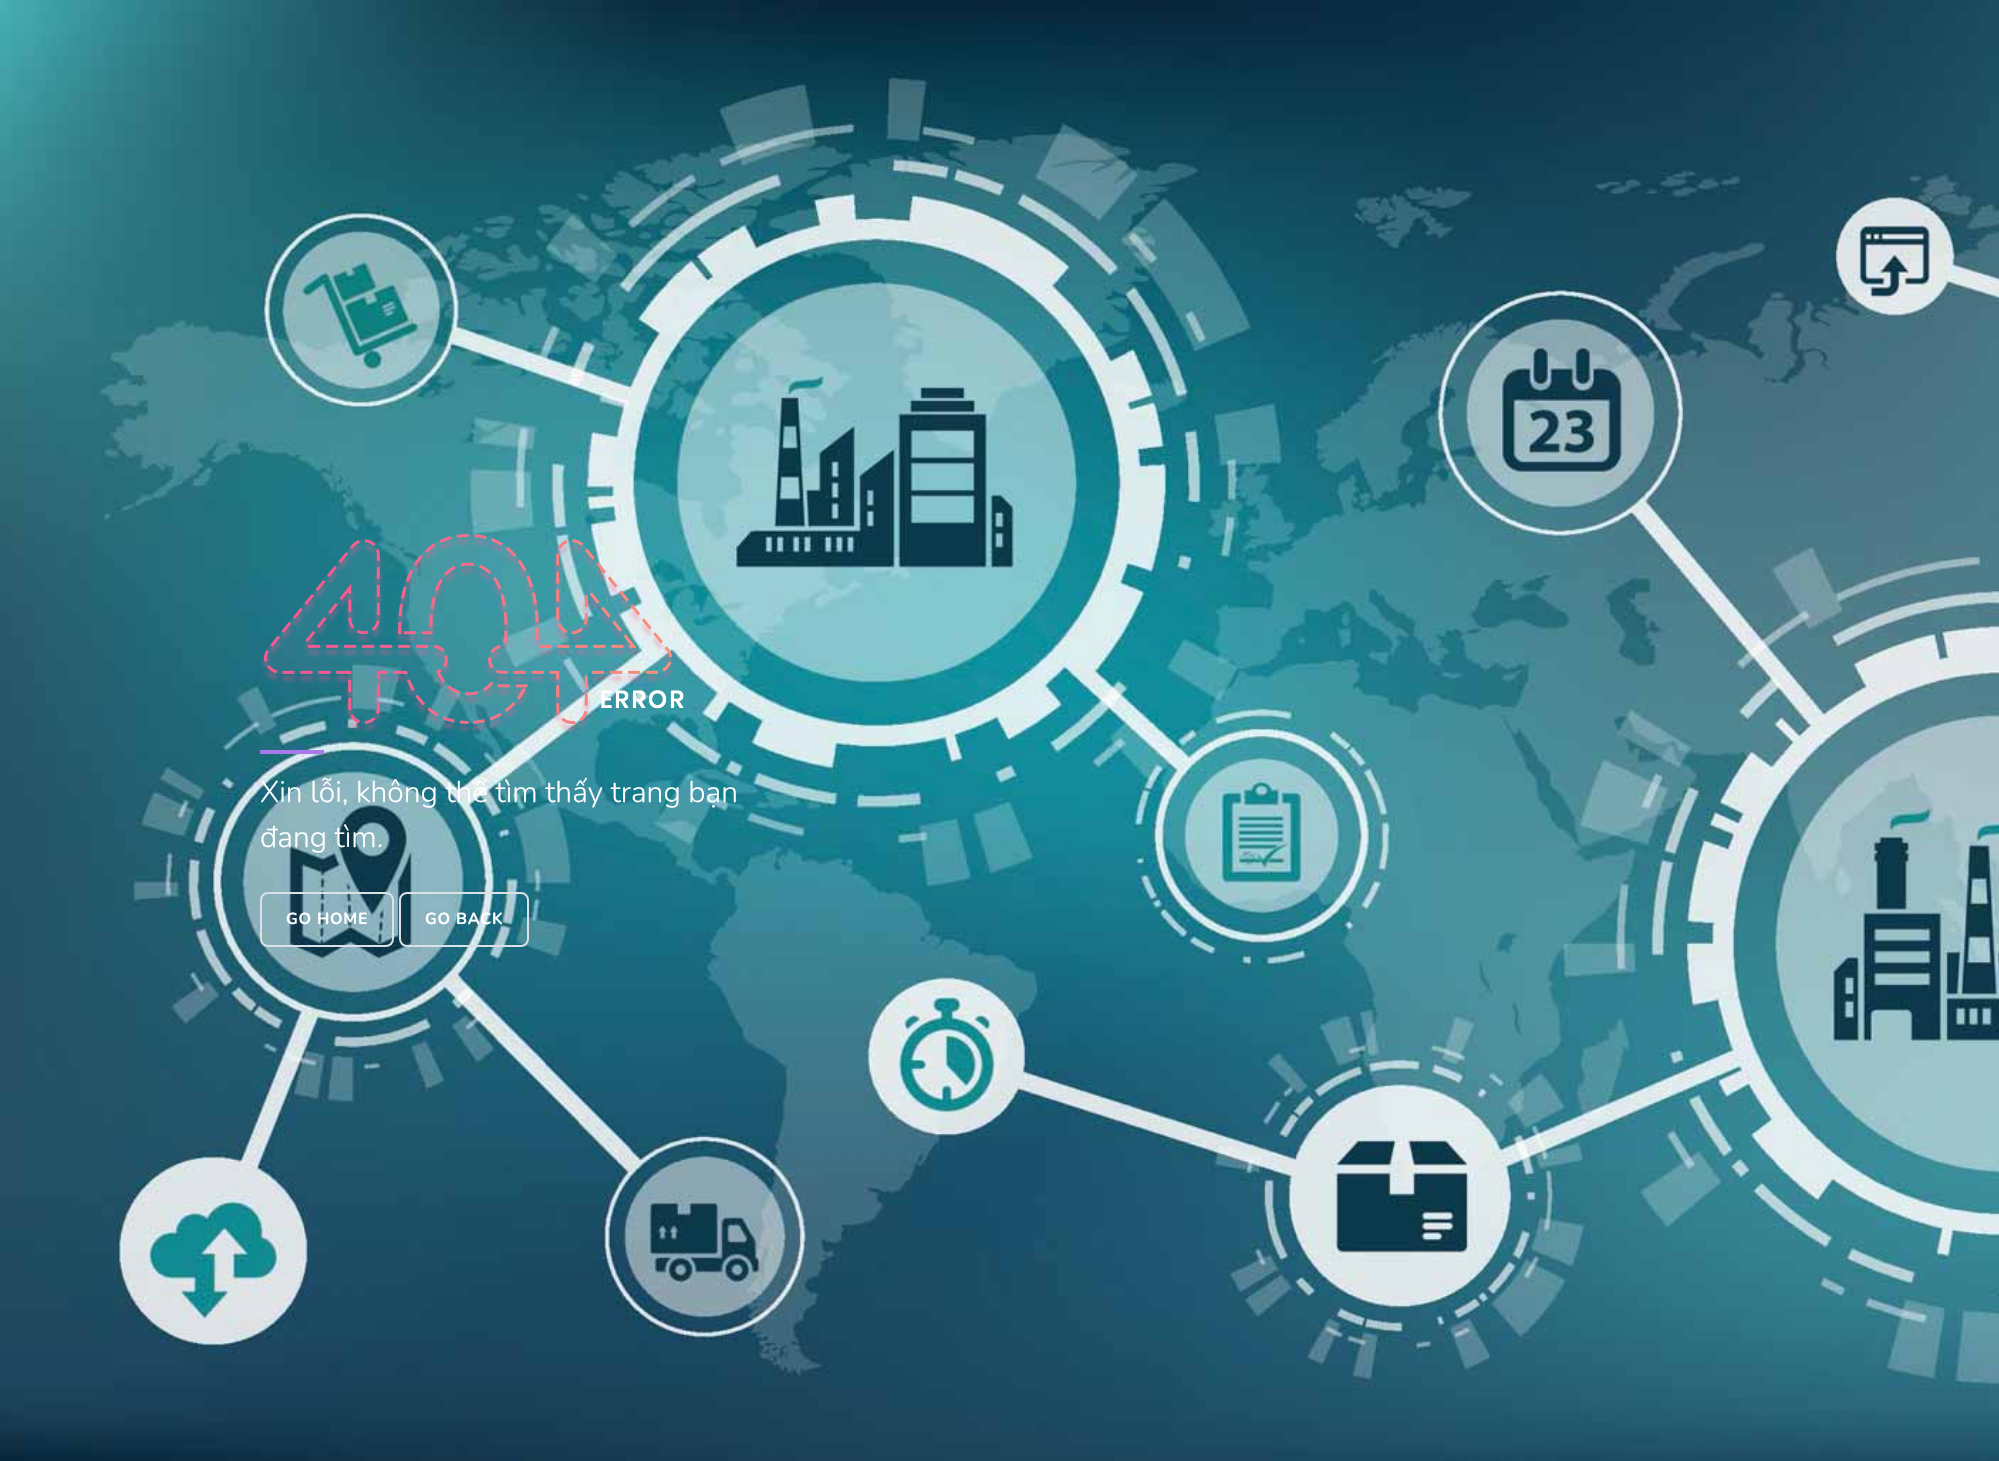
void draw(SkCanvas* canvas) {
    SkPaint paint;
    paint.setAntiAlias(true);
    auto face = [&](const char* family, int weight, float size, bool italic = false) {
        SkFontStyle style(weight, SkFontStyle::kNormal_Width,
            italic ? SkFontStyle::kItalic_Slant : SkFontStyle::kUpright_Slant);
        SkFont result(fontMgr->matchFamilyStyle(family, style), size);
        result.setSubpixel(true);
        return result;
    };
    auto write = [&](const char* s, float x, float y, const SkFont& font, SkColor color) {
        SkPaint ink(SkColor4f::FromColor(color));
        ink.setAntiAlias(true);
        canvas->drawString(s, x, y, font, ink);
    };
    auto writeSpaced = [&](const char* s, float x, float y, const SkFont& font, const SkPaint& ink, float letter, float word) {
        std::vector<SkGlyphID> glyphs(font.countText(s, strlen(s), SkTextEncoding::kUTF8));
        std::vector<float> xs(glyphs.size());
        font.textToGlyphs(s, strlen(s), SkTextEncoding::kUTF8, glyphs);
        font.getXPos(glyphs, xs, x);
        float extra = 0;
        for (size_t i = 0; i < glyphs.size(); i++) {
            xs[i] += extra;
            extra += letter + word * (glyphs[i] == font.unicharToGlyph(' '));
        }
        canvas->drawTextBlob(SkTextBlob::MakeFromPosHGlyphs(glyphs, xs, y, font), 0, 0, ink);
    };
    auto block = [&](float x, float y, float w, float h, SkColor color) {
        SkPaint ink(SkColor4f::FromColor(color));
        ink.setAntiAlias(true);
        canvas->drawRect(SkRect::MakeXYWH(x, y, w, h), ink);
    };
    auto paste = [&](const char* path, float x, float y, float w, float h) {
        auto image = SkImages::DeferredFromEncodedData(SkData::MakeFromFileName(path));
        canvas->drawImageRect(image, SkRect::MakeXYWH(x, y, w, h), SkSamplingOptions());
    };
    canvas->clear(SK_ColorWHITE);
    paste("pic1.png", 0, 0, 1999, 1461);
    paste("pic2.png", 261, 534, 423, 199);
    block(260, 750, 64, 4, SkColorSetRGB(167, 121, 233));
    auto kFont1 = face("Nunito", 300, 30);
    write("Xin lỗi, không thể tìm thấy trang bạn", 260, 802, kFont1, SK_ColorWHITE);
    write("đang tìm.", 260, 847, kFont1, SK_ColorWHITE);
    paint.setStyle(SkPaint::kStroke_Style);
    paint.setStrokeWidth(2);
    paint.setColor(SkColorSetRGB(218, 225, 231));
    canvas->drawRoundRect(SkRect::MakeXYWH(261, 893, 132, 53), 7, 7, paint);
    auto kFont2 = face("Nunito", 700, 16);
    paint.setStyle(SkPaint::kFill_Style);
    paint.setColor(SK_ColorWHITE);
    writeSpaced("GO HOME", 286, 924, kFont2, paint, 0.75f, 0);
    paint.setStyle(SkPaint::kStroke_Style);
    paint.setColor(SkColorSetRGB(218, 225, 231));
    canvas->drawRoundRect(SkRect::MakeXYWH(400, 893, 128, 53), 7, 7, paint);
    paint.setStyle(SkPaint::kFill_Style);
    paint.setColor(SK_ColorWHITE);
    writeSpaced("GO BACK", 425, 924, kFont2, paint, 0.75f, 0);
}
